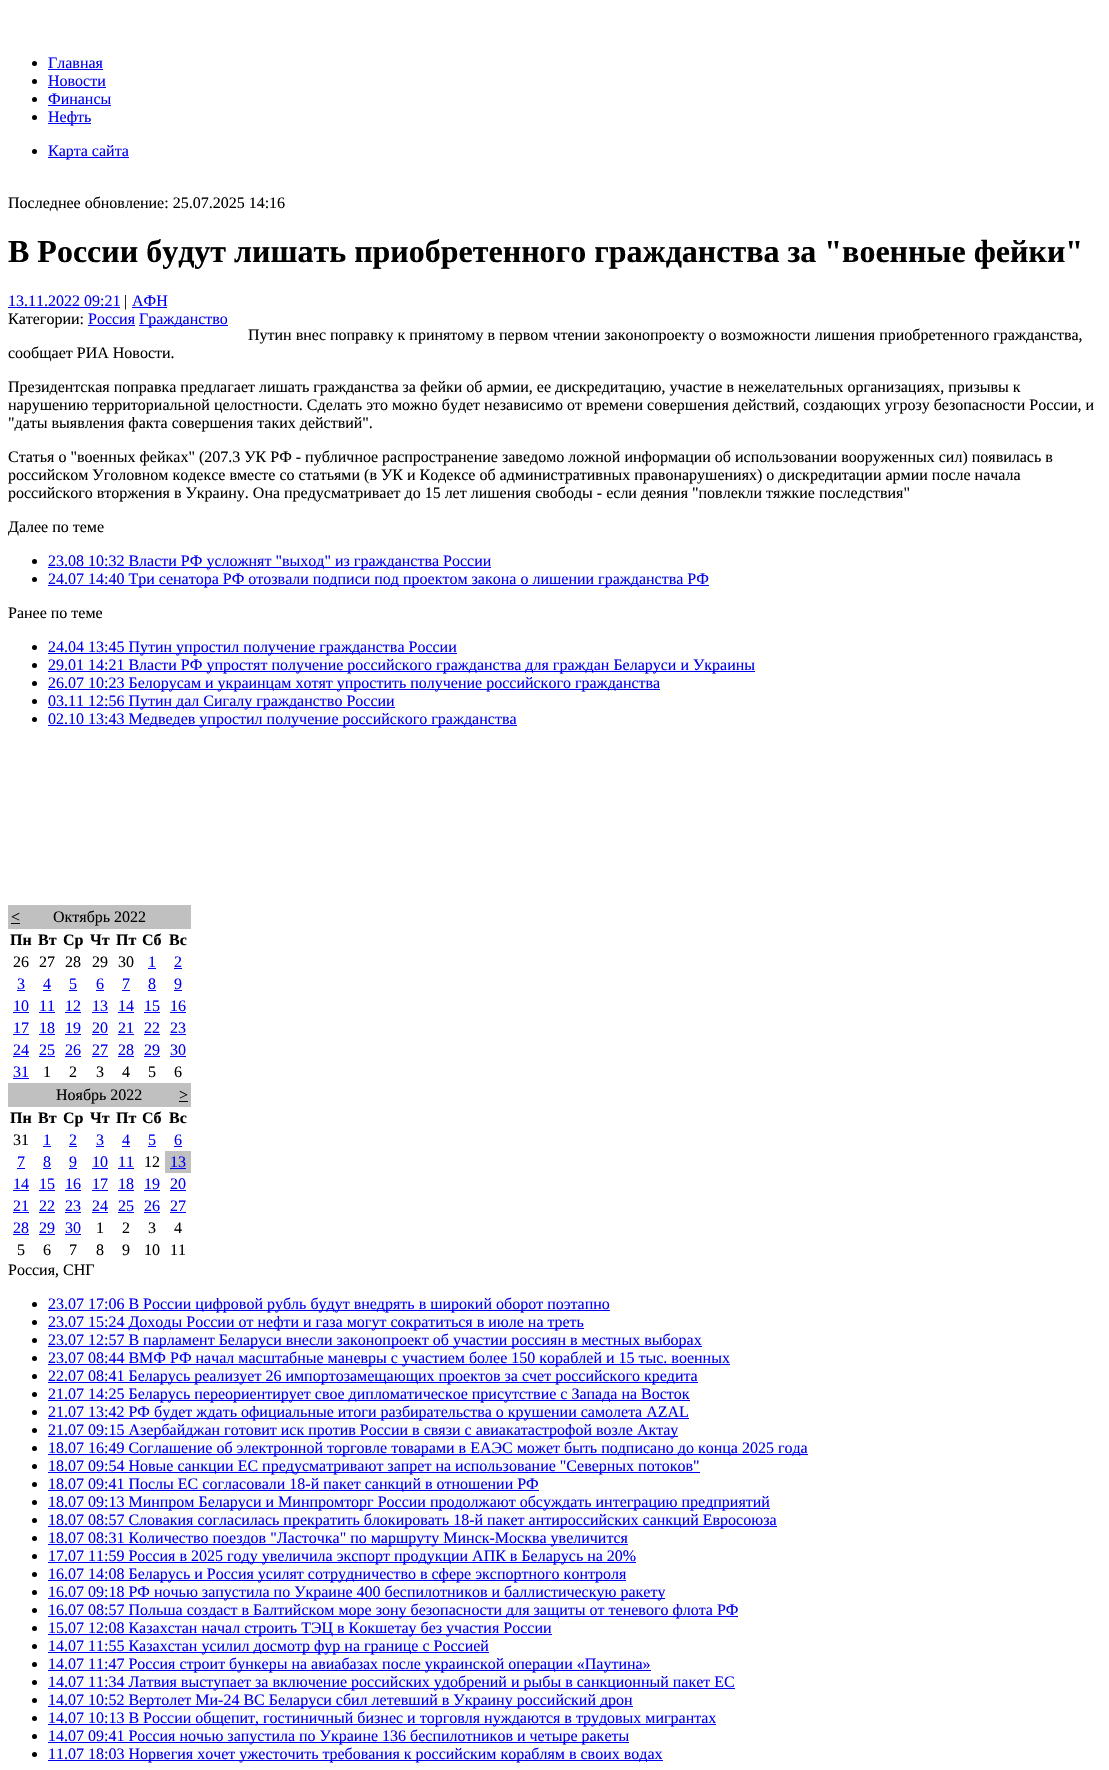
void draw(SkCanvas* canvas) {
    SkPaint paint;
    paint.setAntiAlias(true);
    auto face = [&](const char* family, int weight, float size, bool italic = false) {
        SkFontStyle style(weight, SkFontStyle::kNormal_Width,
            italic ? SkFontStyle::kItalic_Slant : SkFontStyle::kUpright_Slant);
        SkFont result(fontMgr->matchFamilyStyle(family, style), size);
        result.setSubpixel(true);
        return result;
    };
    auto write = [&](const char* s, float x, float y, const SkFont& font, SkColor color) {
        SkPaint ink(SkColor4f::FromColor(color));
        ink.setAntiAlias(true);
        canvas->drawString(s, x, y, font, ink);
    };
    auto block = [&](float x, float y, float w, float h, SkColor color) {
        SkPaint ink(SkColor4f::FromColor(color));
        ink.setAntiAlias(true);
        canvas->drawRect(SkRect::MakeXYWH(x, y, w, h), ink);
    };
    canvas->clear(SK_ColorWHITE);
    paint.setColor(SK_ColorBLACK);
    canvas->drawCircle(34.5f, 63.5f, 2.5f, paint);
    auto kFont1 = face("Liberation Serif", 400, 16);
    write("Главная", 48, 68, kFont1, SkColorSetRGB(0, 0, 238));
    block(48, 69, 55, 1, SkColorSetRGB(0, 0, 238));
    canvas->drawCircle(34.5f, 81.5f, 2.5f, paint);
    write("Новости", 48, 86, kFont1, SkColorSetRGB(0, 0, 238));
    block(48, 87, 58, 1, SkColorSetRGB(0, 0, 238));
    canvas->drawCircle(34.5f, 99.5f, 2.5f, paint);
    write("Финансы", 48, 104, kFont1, SkColorSetRGB(0, 0, 238));
    block(48, 105, 63, 1, SkColorSetRGB(0, 0, 238));
    canvas->drawCircle(34.5f, 117.5f, 2.5f, paint);
    block(48, 123, 43, 1, SkColorSetRGB(0, 0, 238));
    write("Нефть", 48, 122, kFont1, SkColorSetRGB(0, 0, 238));
    canvas->drawCircle(34.5f, 151.5f, 2.5f, paint);
    block(48, 157, 81, 1, SkColorSetRGB(0, 0, 238));
    write("Карта сайта", 48, 156, kFont1, SkColorSetRGB(0, 0, 238));
    write("Последнее обновление: 25.07.2025 14:16", 8, 208, kFont1, SK_ColorBLACK);
    auto kFont2 = face("Liberation Serif", 700, 32);
    write("В России будут лишать приобретенного гражданства за \"военные фейки\"", 8, 262, kFont2, SK_ColorBLACK);
    write("13.11.2022 09:21", 8, 306, kFont1, SkColorSetRGB(0, 0, 238));
    block(8, 307, 112, 1, SkColorSetRGB(0, 0, 238));
    write("|", 124, 306, kFont1, SK_ColorBLACK);
    write("АФН", 132, 306, kFont1, SkColorSetRGB(0, 0, 238));
    block(132, 307, 35, 1, SkColorSetRGB(0, 0, 238));
    write("Категории:", 8, 324, kFont1, SK_ColorBLACK);
    write("Россия", 88, 324, kFont1, SkColorSetRGB(0, 0, 238));
    block(88, 325, 47, 1, SkColorSetRGB(0, 0, 238));
    block(139, 325, 89, 1, SkColorSetRGB(0, 0, 238));
    write("Гражданство", 139, 324, kFont1, SkColorSetRGB(0, 0, 238));
    write("Путин внес поправку к принятому в первом чтении законопроекту о возможности лишения приобретенного гражданства,", 248, 340, kFont1, SK_ColorBLACK);
    write("сообщает РИА Новости.", 8, 358, kFont1, SK_ColorBLACK);
    write("Президентская поправка предлагает лишать гражданства за фейки об армии, ее дискредитацию, участие в нежелательных организациях, призывы к", 8, 392, kFont1, SK_ColorBLACK);
    write("нарушению территориальной целостности. Сделать это можно будет независимо от времени совершения действий, создающих угрозу безопасности России, и", 8, 410, kFont1, SK_ColorBLACK);
    write("\"даты выявления факта совершения таких действий\".", 8, 428, kFont1, SK_ColorBLACK);
    write("Статья о \"военных фейках\" (207.3 УК РФ - публичное распространение заведомо ложной информации об использовании вооруженных сил) появилась в", 8, 462, kFont1, SK_ColorBLACK);
    write("российском Уголовном кодексе вместе со статьями (в УК и Кодексе об административных правонарушениях) о дискредитации армии после начала", 8, 480, kFont1, SK_ColorBLACK);
    write("российского вторжения в Украину. Она предусматривает до 15 лет лишения свободы - если деяния \"повлекли тяжкие последствия\"", 8, 498, kFont1, SK_ColorBLACK);
    write("Далее по теме", 8, 532, kFont1, SK_ColorBLACK);
    canvas->drawCircle(34.5f, 561.5f, 2.5f, paint);
    block(48, 567, 443, 1, SkColorSetRGB(0, 0, 238));
    write("23.08 10:32 Власти РФ усложнят \"выход\" из гражданства России", 48, 566, kFont1, SkColorSetRGB(0, 0, 238));
    canvas->drawCircle(34.5f, 579.5f, 2.5f, paint);
    block(48, 585, 661, 1, SkColorSetRGB(0, 0, 238));
    write("24.07 14:40 Три сенатора РФ отозвали подписи под проектом закона о лишении гражданства РФ", 48, 584, kFont1, SkColorSetRGB(0, 0, 238));
    write("Ранее по теме", 8, 618, kFont1, SK_ColorBLACK);
    canvas->drawCircle(34.5f, 647.5f, 2.5f, paint);
    block(48, 653, 409, 1, SkColorSetRGB(0, 0, 238));
    write("24.04 13:45 Путин упростил получение гражданства России", 48, 652, kFont1, SkColorSetRGB(0, 0, 238));
    canvas->drawCircle(34.5f, 665.5f, 2.5f, paint);
    block(48, 671, 707, 1, SkColorSetRGB(0, 0, 238));
    write("29.01 14:21 Власти РФ упростят получение российского гражданства для граждан Беларуси и Украины", 48, 670, kFont1, SkColorSetRGB(0, 0, 238));
    canvas->drawCircle(34.5f, 683.5f, 2.5f, paint);
    block(48, 689, 612, 1, SkColorSetRGB(0, 0, 238));
    write("26.07 10:23 Белорусам и украинцам хотят упростить получение российского гражданства", 48, 688, kFont1, SkColorSetRGB(0, 0, 238));
    canvas->drawCircle(34.5f, 701.5f, 2.5f, paint);
    block(48, 707, 347, 1, SkColorSetRGB(0, 0, 238));
    write("03.11 12:56 Путин дал Сигалу гражданство России", 48, 706, kFont1, SkColorSetRGB(0, 0, 238));
    canvas->drawCircle(34.5f, 719.5f, 2.5f, paint);
    block(48, 725, 469, 1, SkColorSetRGB(0, 0, 238));
    write("02.10 13:43 Медведев упростил получение российского гражданства", 48, 724, kFont1, SkColorSetRGB(0, 0, 238));
    block(8, 905, 183, 24, SkColorSetRGB(192, 192, 192));
    write("<", 11, 922, kFont1, SK_ColorBLACK);
    block(11, 923, 9, 1, SK_ColorBLACK);
    write("Октябрь 2022", 53, 922, kFont1, SK_ColorBLACK);
    auto kFont3 = face("Liberation Serif", 700, 16);
    write("Пн", 10, 945, kFont3, SK_ColorBLACK);
    write("Вт", 38, 945, kFont3, SK_ColorBLACK);
    write("Ср", 63, 945, kFont3, SK_ColorBLACK);
    write("Чт", 90, 945, kFont3, SK_ColorBLACK);
    write("Пт", 116, 945, kFont3, SK_ColorBLACK);
    write("Сб", 142, 945, kFont3, SK_ColorBLACK);
    write("Вс", 169, 945, kFont3, SK_ColorBLACK);
    write("26", 13, 967, kFont1, SK_ColorBLACK);
    write("27", 39, 967, kFont1, SK_ColorBLACK);
    write("28", 65, 967, kFont1, SK_ColorBLACK);
    write("29", 92, 967, kFont1, SK_ColorBLACK);
    write("30", 118, 967, kFont1, SK_ColorBLACK);
    write("1", 148, 967, kFont1, SkColorSetRGB(0, 0, 238));
    block(148, 968, 8, 1, SkColorSetRGB(0, 0, 238));
    write("2", 174, 967, kFont1, SkColorSetRGB(0, 0, 238));
    block(174, 968, 8, 1, SkColorSetRGB(0, 0, 238));
    write("3", 17, 989, kFont1, SkColorSetRGB(0, 0, 238));
    block(17, 990, 8, 1, SkColorSetRGB(0, 0, 238));
    write("4", 43, 989, kFont1, SkColorSetRGB(0, 0, 238));
    block(43, 990, 8, 1, SkColorSetRGB(0, 0, 238));
    write("5", 69, 989, kFont1, SkColorSetRGB(0, 0, 238));
    block(69, 990, 8, 1, SkColorSetRGB(0, 0, 238));
    write("6", 96, 989, kFont1, SkColorSetRGB(0, 0, 238));
    block(96, 990, 8, 1, SkColorSetRGB(0, 0, 238));
    write("7", 122, 989, kFont1, SkColorSetRGB(0, 0, 238));
    block(122, 990, 8, 1, SkColorSetRGB(0, 0, 238));
    write("8", 148, 989, kFont1, SkColorSetRGB(0, 0, 238));
    block(148, 990, 8, 1, SkColorSetRGB(0, 0, 238));
    write("9", 174, 989, kFont1, SkColorSetRGB(0, 0, 238));
    block(174, 990, 8, 1, SkColorSetRGB(0, 0, 238));
    write("10", 13, 1011, kFont1, SkColorSetRGB(0, 0, 238));
    block(13, 1012, 16, 1, SkColorSetRGB(0, 0, 238));
    write("11", 39, 1011, kFont1, SkColorSetRGB(0, 0, 238));
    block(39, 1012, 16, 1, SkColorSetRGB(0, 0, 238));
    write("12", 65, 1011, kFont1, SkColorSetRGB(0, 0, 238));
    block(65, 1012, 16, 1, SkColorSetRGB(0, 0, 238));
    write("13", 92, 1011, kFont1, SkColorSetRGB(0, 0, 238));
    block(92, 1012, 16, 1, SkColorSetRGB(0, 0, 238));
    write("14", 118, 1011, kFont1, SkColorSetRGB(0, 0, 238));
    block(118, 1012, 16, 1, SkColorSetRGB(0, 0, 238));
    write("15", 144, 1011, kFont1, SkColorSetRGB(0, 0, 238));
    block(144, 1012, 16, 1, SkColorSetRGB(0, 0, 238));
    write("16", 170, 1011, kFont1, SkColorSetRGB(0, 0, 238));
    block(170, 1012, 16, 1, SkColorSetRGB(0, 0, 238));
    write("17", 13, 1033, kFont1, SkColorSetRGB(0, 0, 238));
    block(13, 1034, 16, 1, SkColorSetRGB(0, 0, 238));
    write("18", 39, 1033, kFont1, SkColorSetRGB(0, 0, 238));
    block(39, 1034, 16, 1, SkColorSetRGB(0, 0, 238));
    write("19", 65, 1033, kFont1, SkColorSetRGB(0, 0, 238));
    block(65, 1034, 16, 1, SkColorSetRGB(0, 0, 238));
    write("20", 92, 1033, kFont1, SkColorSetRGB(0, 0, 238));
    block(92, 1034, 16, 1, SkColorSetRGB(0, 0, 238));
    write("21", 118, 1033, kFont1, SkColorSetRGB(0, 0, 238));
    block(118, 1034, 16, 1, SkColorSetRGB(0, 0, 238));
    write("22", 144, 1033, kFont1, SkColorSetRGB(0, 0, 238));
    block(144, 1034, 16, 1, SkColorSetRGB(0, 0, 238));
    write("23", 170, 1033, kFont1, SkColorSetRGB(0, 0, 238));
    block(170, 1034, 16, 1, SkColorSetRGB(0, 0, 238));
    write("24", 13, 1055, kFont1, SkColorSetRGB(0, 0, 238));
    block(13, 1056, 16, 1, SkColorSetRGB(0, 0, 238));
    write("25", 39, 1055, kFont1, SkColorSetRGB(0, 0, 238));
    block(39, 1056, 16, 1, SkColorSetRGB(0, 0, 238));
    write("26", 65, 1055, kFont1, SkColorSetRGB(0, 0, 238));
    block(65, 1056, 16, 1, SkColorSetRGB(0, 0, 238));
    write("27", 92, 1055, kFont1, SkColorSetRGB(0, 0, 238));
    block(92, 1056, 16, 1, SkColorSetRGB(0, 0, 238));
    write("28", 118, 1055, kFont1, SkColorSetRGB(0, 0, 238));
    block(118, 1056, 16, 1, SkColorSetRGB(0, 0, 238));
    write("29", 144, 1055, kFont1, SkColorSetRGB(0, 0, 238));
    block(144, 1056, 16, 1, SkColorSetRGB(0, 0, 238));
    write("30", 170, 1055, kFont1, SkColorSetRGB(0, 0, 238));
    block(170, 1056, 16, 1, SkColorSetRGB(0, 0, 238));
    write("31", 13, 1077, kFont1, SkColorSetRGB(0, 0, 238));
    block(13, 1078, 16, 1, SkColorSetRGB(0, 0, 238));
    write("1", 43, 1077, kFont1, SK_ColorBLACK);
    write("2", 69, 1077, kFont1, SK_ColorBLACK);
    write("3", 96, 1077, kFont1, SK_ColorBLACK);
    write("4", 122, 1077, kFont1, SK_ColorBLACK);
    write("5", 148, 1077, kFont1, SK_ColorBLACK);
    write("6", 174, 1077, kFont1, SK_ColorBLACK);
    block(8, 1083, 183, 24, SkColorSetRGB(192, 192, 192));
    write("Ноябрь 2022", 56, 1100, kFont1, SK_ColorBLACK);
    write(">", 179, 1100, kFont1, SK_ColorBLACK);
    block(179, 1101, 9, 1, SK_ColorBLACK);
    write("Пн", 10, 1123, kFont3, SK_ColorBLACK);
    write("Вт", 38, 1123, kFont3, SK_ColorBLACK);
    write("Ср", 63, 1123, kFont3, SK_ColorBLACK);
    write("Чт", 90, 1123, kFont3, SK_ColorBLACK);
    write("Пт", 116, 1123, kFont3, SK_ColorBLACK);
    write("Сб", 142, 1123, kFont3, SK_ColorBLACK);
    write("Вс", 169, 1123, kFont3, SK_ColorBLACK);
    write("31", 13, 1145, kFont1, SK_ColorBLACK);
    write("1", 43, 1145, kFont1, SkColorSetRGB(0, 0, 238));
    block(43, 1146, 8, 1, SkColorSetRGB(0, 0, 238));
    write("2", 69, 1145, kFont1, SkColorSetRGB(0, 0, 238));
    block(69, 1146, 8, 1, SkColorSetRGB(0, 0, 238));
    write("3", 96, 1145, kFont1, SkColorSetRGB(0, 0, 238));
    block(96, 1146, 8, 1, SkColorSetRGB(0, 0, 238));
    write("4", 122, 1145, kFont1, SkColorSetRGB(0, 0, 238));
    block(122, 1146, 8, 1, SkColorSetRGB(0, 0, 238));
    write("5", 148, 1145, kFont1, SkColorSetRGB(0, 0, 238));
    block(148, 1146, 8, 1, SkColorSetRGB(0, 0, 238));
    write("6", 174, 1145, kFont1, SkColorSetRGB(0, 0, 238));
    block(174, 1146, 8, 1, SkColorSetRGB(0, 0, 238));
    write("7", 17, 1167, kFont1, SkColorSetRGB(0, 0, 238));
    block(17, 1168, 8, 1, SkColorSetRGB(0, 0, 238));
    write("8", 43, 1167, kFont1, SkColorSetRGB(0, 0, 238));
    block(43, 1168, 8, 1, SkColorSetRGB(0, 0, 238));
    write("9", 69, 1167, kFont1, SkColorSetRGB(0, 0, 238));
    block(69, 1168, 8, 1, SkColorSetRGB(0, 0, 238));
    write("10", 92, 1167, kFont1, SkColorSetRGB(0, 0, 238));
    block(92, 1168, 16, 1, SkColorSetRGB(0, 0, 238));
    write("11", 118, 1167, kFont1, SkColorSetRGB(0, 0, 238));
    block(118, 1168, 16, 1, SkColorSetRGB(0, 0, 238));
    write("12", 144, 1167, kFont1, SK_ColorBLACK);
    block(165, 1151, 26, 22, SkColorSetRGB(192, 192, 192));
    write("13", 170, 1167, kFont1, SkColorSetRGB(0, 0, 238));
    block(170, 1168, 16, 1, SkColorSetRGB(0, 0, 238));
    write("14", 13, 1189, kFont1, SkColorSetRGB(0, 0, 238));
    block(13, 1190, 16, 1, SkColorSetRGB(0, 0, 238));
    write("15", 39, 1189, kFont1, SkColorSetRGB(0, 0, 238));
    block(39, 1190, 16, 1, SkColorSetRGB(0, 0, 238));
    write("16", 65, 1189, kFont1, SkColorSetRGB(0, 0, 238));
    block(65, 1190, 16, 1, SkColorSetRGB(0, 0, 238));
    write("17", 92, 1189, kFont1, SkColorSetRGB(0, 0, 238));
    block(92, 1190, 16, 1, SkColorSetRGB(0, 0, 238));
    write("18", 118, 1189, kFont1, SkColorSetRGB(0, 0, 238));
    block(118, 1190, 16, 1, SkColorSetRGB(0, 0, 238));
    write("19", 144, 1189, kFont1, SkColorSetRGB(0, 0, 238));
    block(144, 1190, 16, 1, SkColorSetRGB(0, 0, 238));
    write("20", 170, 1189, kFont1, SkColorSetRGB(0, 0, 238));
    block(170, 1190, 16, 1, SkColorSetRGB(0, 0, 238));
    write("21", 13, 1211, kFont1, SkColorSetRGB(0, 0, 238));
    block(13, 1212, 16, 1, SkColorSetRGB(0, 0, 238));
    write("22", 39, 1211, kFont1, SkColorSetRGB(0, 0, 238));
    block(39, 1212, 16, 1, SkColorSetRGB(0, 0, 238));
    write("23", 65, 1211, kFont1, SkColorSetRGB(0, 0, 238));
    block(65, 1212, 16, 1, SkColorSetRGB(0, 0, 238));
    write("24", 92, 1211, kFont1, SkColorSetRGB(0, 0, 238));
    block(92, 1212, 16, 1, SkColorSetRGB(0, 0, 238));
    write("25", 118, 1211, kFont1, SkColorSetRGB(0, 0, 238));
    block(118, 1212, 16, 1, SkColorSetRGB(0, 0, 238));
    write("26", 144, 1211, kFont1, SkColorSetRGB(0, 0, 238));
    block(144, 1212, 16, 1, SkColorSetRGB(0, 0, 238));
    write("27", 170, 1211, kFont1, SkColorSetRGB(0, 0, 238));
    block(170, 1212, 16, 1, SkColorSetRGB(0, 0, 238));
    write("28", 13, 1233, kFont1, SkColorSetRGB(0, 0, 238));
    block(13, 1234, 16, 1, SkColorSetRGB(0, 0, 238));
    write("29", 39, 1233, kFont1, SkColorSetRGB(0, 0, 238));
    block(39, 1234, 16, 1, SkColorSetRGB(0, 0, 238));
    write("30", 65, 1233, kFont1, SkColorSetRGB(0, 0, 238));
    block(65, 1234, 16, 1, SkColorSetRGB(0, 0, 238));
    write("1", 96, 1233, kFont1, SK_ColorBLACK);
    write("2", 122, 1233, kFont1, SK_ColorBLACK);
    write("3", 148, 1233, kFont1, SK_ColorBLACK);
    write("4", 174, 1233, kFont1, SK_ColorBLACK);
    write("5", 17, 1255, kFont1, SK_ColorBLACK);
    write("6", 43, 1255, kFont1, SK_ColorBLACK);
    write("7", 69, 1255, kFont1, SK_ColorBLACK);
    write("8", 96, 1255, kFont1, SK_ColorBLACK);
    write("9", 122, 1255, kFont1, SK_ColorBLACK);
    write("10", 144, 1255, kFont1, SK_ColorBLACK);
    write("11", 170, 1255, kFont1, SK_ColorBLACK);
    write("Россия, СНГ", 8, 1275, kFont1, SK_ColorBLACK);
    canvas->drawCircle(34.5f, 1304.5f, 2.5f, paint);
    block(48, 1310, 562, 1, SkColorSetRGB(0, 0, 238));
    write("23.07 17:06 В России цифровой рубль будут внедрять в широкий оборот поэтапно", 48, 1309, kFont1, SkColorSetRGB(0, 0, 238));
    canvas->drawCircle(34.5f, 1322.5f, 2.5f, paint);
    block(48, 1328, 536, 1, SkColorSetRGB(0, 0, 238));
    write("23.07 15:24 Доходы России от нефти и газа могут сократиться в июле на треть", 48, 1327, kFont1, SkColorSetRGB(0, 0, 238));
    canvas->drawCircle(34.5f, 1340.5f, 2.5f, paint);
    block(48, 1346, 654, 1, SkColorSetRGB(0, 0, 238));
    write("23.07 12:57 В парламент Беларуси внесли законопроект об участии россиян в местных выборах", 48, 1345, kFont1, SkColorSetRGB(0, 0, 238));
    canvas->drawCircle(34.5f, 1358.5f, 2.5f, paint);
    block(48, 1364, 682, 1, SkColorSetRGB(0, 0, 238));
    write("23.07 08:44 ВМФ РФ начал масштабные маневры с участием более 150 кораблей и 15 тыс. военных", 48, 1363, kFont1, SkColorSetRGB(0, 0, 238));
    canvas->drawCircle(34.5f, 1376.5f, 2.5f, paint);
    block(48, 1382, 650, 1, SkColorSetRGB(0, 0, 238));
    write("22.07 08:41 Беларусь реализует 26 импортозамещающих проектов за счет российского кредита", 48, 1381, kFont1, SkColorSetRGB(0, 0, 238));
    canvas->drawCircle(34.5f, 1394.5f, 2.5f, paint);
    block(48, 1400, 642, 1, SkColorSetRGB(0, 0, 238));
    write("21.07 14:25 Беларусь переориентирует свое дипломатическое присутствие с Запада на Восток", 48, 1399, kFont1, SkColorSetRGB(0, 0, 238));
    canvas->drawCircle(34.5f, 1412.5f, 2.5f, paint);
    block(48, 1418, 641, 1, SkColorSetRGB(0, 0, 238));
    write("21.07 13:42 РФ будет ждать официальные итоги разбирательства о крушении самолета AZAL", 48, 1417, kFont1, SkColorSetRGB(0, 0, 238));
    canvas->drawCircle(34.5f, 1430.5f, 2.5f, paint);
    block(48, 1436, 630, 1, SkColorSetRGB(0, 0, 238));
    write("21.07 09:15 Азербайджан готовит иск против России в связи с авиакатастрофой возле Актау", 48, 1435, kFont1, SkColorSetRGB(0, 0, 238));
    canvas->drawCircle(34.5f, 1448.5f, 2.5f, paint);
    block(48, 1454, 760, 1, SkColorSetRGB(0, 0, 238));
    write("18.07 16:49 Соглашение об электронной торговле товарами в ЕАЭС может быть подписано до конца 2025 года", 48, 1453, kFont1, SkColorSetRGB(0, 0, 238));
    canvas->drawCircle(34.5f, 1466.5f, 2.5f, paint);
    block(48, 1472, 652, 1, SkColorSetRGB(0, 0, 238));
    write("18.07 09:54 Новые санкции ЕС предусматривают запрет на использование \"Северных потоков\"", 48, 1471, kFont1, SkColorSetRGB(0, 0, 238));
    canvas->drawCircle(34.5f, 1484.5f, 2.5f, paint);
    block(48, 1490, 491, 1, SkColorSetRGB(0, 0, 238));
    write("18.07 09:41 Послы ЕС согласовали 18-й пакет санкций в отношении РФ", 48, 1489, kFont1, SkColorSetRGB(0, 0, 238));
    canvas->drawCircle(34.5f, 1502.5f, 2.5f, paint);
    block(48, 1508, 722, 1, SkColorSetRGB(0, 0, 238));
    write("18.07 09:13 Минпром Беларуси и Минпромторг России продолжают обсуждать интеграцию предприятий", 48, 1507, kFont1, SkColorSetRGB(0, 0, 238));
    canvas->drawCircle(34.5f, 1520.5f, 2.5f, paint);
    block(48, 1526, 729, 1, SkColorSetRGB(0, 0, 238));
    write("18.07 08:57 Словакия согласилась прекратить блокировать 18-й пакет антироссийских санкций Евросоюза", 48, 1525, kFont1, SkColorSetRGB(0, 0, 238));
    canvas->drawCircle(34.5f, 1538.5f, 2.5f, paint);
    block(48, 1544, 580, 1, SkColorSetRGB(0, 0, 238));
    write("18.07 08:31 Количество поездов \"Ласточка\" по маршруту Минск-Москва увеличится", 48, 1543, kFont1, SkColorSetRGB(0, 0, 238));
    canvas->drawCircle(34.5f, 1556.5f, 2.5f, paint);
    block(48, 1562, 588, 1, SkColorSetRGB(0, 0, 238));
    write("17.07 11:59 Россия в 2025 году увеличила экспорт продукции АПК в Беларусь на 20%", 48, 1561, kFont1, SkColorSetRGB(0, 0, 238));
    canvas->drawCircle(34.5f, 1574.5f, 2.5f, paint);
    block(48, 1580, 578, 1, SkColorSetRGB(0, 0, 238));
    write("16.07 14:08 Беларусь и Россия усилят сотрудничество в сфере экспортного контроля", 48, 1579, kFont1, SkColorSetRGB(0, 0, 238));
    canvas->drawCircle(34.5f, 1592.5f, 2.5f, paint);
    block(48, 1598, 617, 1, SkColorSetRGB(0, 0, 238));
    write("16.07 09:18 РФ ночью запустила по Украине 400 беспилотников и баллистическую ракету", 48, 1597, kFont1, SkColorSetRGB(0, 0, 238));
    canvas->drawCircle(34.5f, 1610.5f, 2.5f, paint);
    block(48, 1616, 690, 1, SkColorSetRGB(0, 0, 238));
    write("16.07 08:57 Польша создаст в Балтийском море зону безопасности для защиты от теневого флота РФ", 48, 1615, kFont1, SkColorSetRGB(0, 0, 238));
    canvas->drawCircle(34.5f, 1628.5f, 2.5f, paint);
    block(48, 1634, 504, 1, SkColorSetRGB(0, 0, 238));
    write("15.07 12:08 Казахстан начал строить ТЭЦ в Кокшетау без участия России", 48, 1633, kFont1, SkColorSetRGB(0, 0, 238));
    canvas->drawCircle(34.5f, 1646.5f, 2.5f, paint);
    block(48, 1652, 441, 1, SkColorSetRGB(0, 0, 238));
    write("14.07 11:55 Казахстан усилил досмотр фур на границе с Россией", 48, 1651, kFont1, SkColorSetRGB(0, 0, 238));
    canvas->drawCircle(34.5f, 1664.5f, 2.5f, paint);
    block(48, 1670, 603, 1, SkColorSetRGB(0, 0, 238));
    write("14.07 11:47 Россия строит бункеры на авиабазах после украинской операции «Паутина»", 48, 1669, kFont1, SkColorSetRGB(0, 0, 238));
    canvas->drawCircle(34.5f, 1682.5f, 2.5f, paint);
    block(48, 1688, 687, 1, SkColorSetRGB(0, 0, 238));
    write("14.07 11:34 Латвия выступает за включение российских удобрений и рыбы в санкционный пакет ЕС", 48, 1687, kFont1, SkColorSetRGB(0, 0, 238));
    canvas->drawCircle(34.5f, 1700.5f, 2.5f, paint);
    block(48, 1706, 585, 1, SkColorSetRGB(0, 0, 238));
    write("14.07 10:52 Вертолет Ми-24 ВС Беларуси сбил летевший в Украину российский дрон", 48, 1705, kFont1, SkColorSetRGB(0, 0, 238));
    canvas->drawCircle(34.5f, 1718.5f, 2.5f, paint);
    block(48, 1724, 668, 1, SkColorSetRGB(0, 0, 238));
    write("14.07 10:13 В России общепит, гостиничный бизнес и торговля нуждаются в трудовых мигрантах", 48, 1723, kFont1, SkColorSetRGB(0, 0, 238));
    canvas->drawCircle(34.5f, 1736.5f, 2.5f, paint);
    block(48, 1742, 581, 1, SkColorSetRGB(0, 0, 238));
    write("14.07 09:41 Россия ночью запустила по Украине 136 беспилотников и четыре ракеты", 48, 1741, kFont1, SkColorSetRGB(0, 0, 238));
    canvas->drawCircle(34.5f, 1754.5f, 2.5f, paint);
    block(48, 1760, 615, 1, SkColorSetRGB(0, 0, 238));
    write("11.07 18:03 Норвегия хочет ужесточить требования к российским кораблям в своих водах", 48, 1759, kFont1, SkColorSetRGB(0, 0, 238));
}
